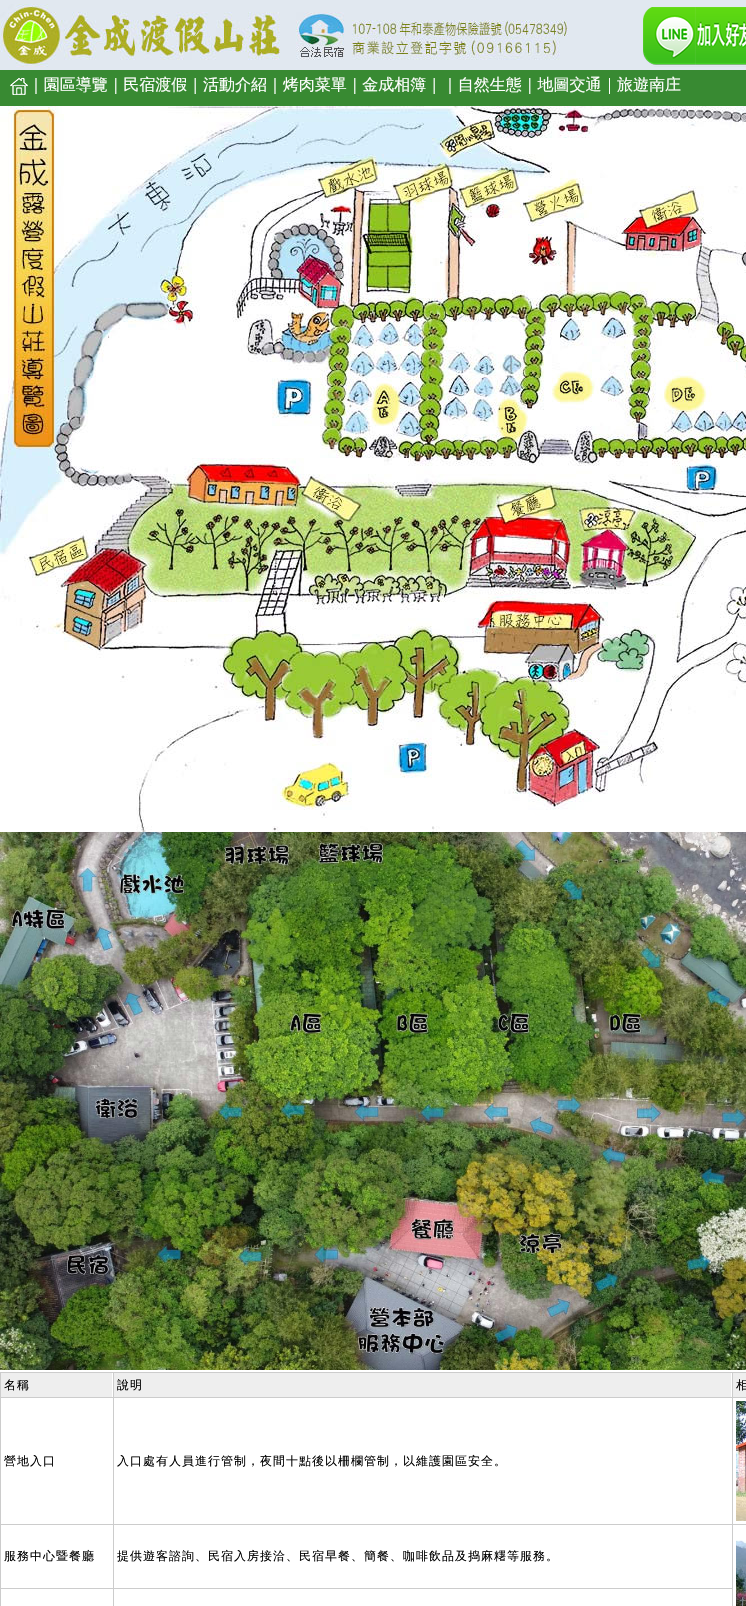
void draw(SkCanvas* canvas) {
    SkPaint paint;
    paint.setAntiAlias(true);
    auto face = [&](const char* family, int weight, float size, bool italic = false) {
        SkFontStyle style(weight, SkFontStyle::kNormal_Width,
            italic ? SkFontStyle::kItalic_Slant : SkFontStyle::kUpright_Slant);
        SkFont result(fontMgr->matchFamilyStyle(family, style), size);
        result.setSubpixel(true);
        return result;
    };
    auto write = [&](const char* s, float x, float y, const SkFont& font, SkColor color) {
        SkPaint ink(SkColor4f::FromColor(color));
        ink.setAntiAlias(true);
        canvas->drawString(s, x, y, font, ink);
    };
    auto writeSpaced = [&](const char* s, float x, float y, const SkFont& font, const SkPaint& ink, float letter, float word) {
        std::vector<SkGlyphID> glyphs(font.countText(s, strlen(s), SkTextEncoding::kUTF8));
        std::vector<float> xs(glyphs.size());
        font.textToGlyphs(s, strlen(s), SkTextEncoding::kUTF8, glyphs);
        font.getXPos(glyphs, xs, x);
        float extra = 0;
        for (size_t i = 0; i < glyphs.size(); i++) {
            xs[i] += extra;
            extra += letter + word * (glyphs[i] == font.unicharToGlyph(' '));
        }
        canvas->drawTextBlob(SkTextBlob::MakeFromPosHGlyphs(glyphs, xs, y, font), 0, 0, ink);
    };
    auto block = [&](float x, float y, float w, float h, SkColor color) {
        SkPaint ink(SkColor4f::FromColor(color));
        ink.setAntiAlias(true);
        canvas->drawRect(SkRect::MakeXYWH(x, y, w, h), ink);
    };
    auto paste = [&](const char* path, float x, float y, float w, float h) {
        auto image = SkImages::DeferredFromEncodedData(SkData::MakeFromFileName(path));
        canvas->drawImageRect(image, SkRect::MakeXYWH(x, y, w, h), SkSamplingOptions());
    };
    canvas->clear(SK_ColorWHITE);
    block(0, 0, 746, 70, SkColorSetRGB(225, 232, 240));
    paste("pic1.png", 0, 4, 568, 63);
    paste("pic2.png", 643, 7, 103, 60);
    block(0, 70, 746, 36, SkColorSetRGB(56, 138, 50));
    paste("pic3.png", 10, 78, 18, 17);
    auto kFont1 = face("WenQuanYi Zen Hei", 500, 16);
    write("｜園區導覽｜民宿渡假｜活動介紹｜烤肉菜單｜金成相簿｜｜自然生態｜地圖交通｜旅遊南庄", 28, 90, kFont1, SK_ColorWHITE);
    paste("pic4.png", 0, 106, 746, 726);
    paste("pic5.png", 0, 832, 746, 538);
    block(0, 1372, 746, 1, SkColorSetRGB(204, 204, 204));
    block(0, 1372, 1, 234, SkColorSetRGB(204, 204, 204));
    block(1, 1373, 111, 24, SkColorSetRGB(238, 238, 238));
    block(732, 1524, 1, 82, SkColorSetRGB(204, 204, 204));
    block(732, 1524, 14, 1, SkColorSetRGB(204, 204, 204));
    block(732, 1397, 1, 128, SkColorSetRGB(204, 204, 204));
    block(732, 1397, 14, 1, SkColorSetRGB(204, 204, 204));
    block(732, 1372, 1, 26, SkColorSetRGB(204, 204, 204));
    block(113, 1588, 1, 18, SkColorSetRGB(204, 204, 204));
    block(113, 1588, 620, 1, SkColorSetRGB(204, 204, 204));
    block(113, 1524, 1, 65, SkColorSetRGB(204, 204, 204));
    block(113, 1524, 620, 1, SkColorSetRGB(204, 204, 204));
    block(113, 1397, 1, 128, SkColorSetRGB(204, 204, 204));
    block(113, 1397, 620, 1, SkColorSetRGB(204, 204, 204));
    block(113, 1372, 1, 26, SkColorSetRGB(204, 204, 204));
    block(0, 1397, 114, 1, SkColorSetRGB(204, 204, 204));
    auto kFont2 = face("WenQuanYi Zen Hei", 500, 12);
    paint.setColor(SK_ColorBLACK);
    writeSpaced("名稱", 4, 1389, kFont2, paint, 1, 0);
    block(114, 1373, 617, 24, SkColorSetRGB(238, 238, 238));
    writeSpaced("說明", 117, 1389, kFont2, paint, 1, 0);
    block(733, 1373, 13, 24, SkColorSetRGB(238, 238, 238));
    writeSpaced("相", 736, 1389, kFont2, paint, 1, 0);
    block(0, 1524, 114, 1, SkColorSetRGB(204, 204, 204));
    writeSpaced("營地入口", 4, 1465, kFont2, paint, 1, 0);
    writeSpaced("入口處有人員進行管制，夜間十點後以柵欄管制，以維護園區安全。", 117, 1465, kFont2, paint, 1, 0);
    paste("pic6.png", 736, 1401, 10, 120);
    block(0, 1588, 114, 1, SkColorSetRGB(204, 204, 204));
    writeSpaced("服務中心暨餐廳", 4, 1560, kFont2, paint, 1, 0);
    writeSpaced("提供遊客諮詢、民宿入房接洽、民宿早餐、簡餐、咖啡飲品及捣麻糬等服務。", 117, 1560, kFont2, paint, 1, 0);
    paste("pic7.png", 736, 1540, 10, 66);
}
